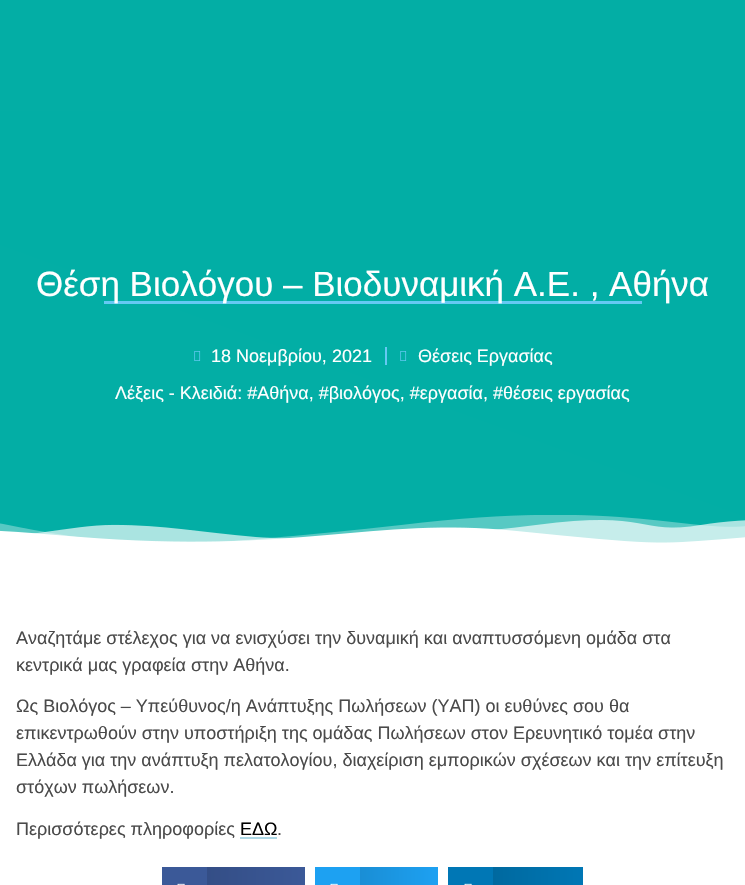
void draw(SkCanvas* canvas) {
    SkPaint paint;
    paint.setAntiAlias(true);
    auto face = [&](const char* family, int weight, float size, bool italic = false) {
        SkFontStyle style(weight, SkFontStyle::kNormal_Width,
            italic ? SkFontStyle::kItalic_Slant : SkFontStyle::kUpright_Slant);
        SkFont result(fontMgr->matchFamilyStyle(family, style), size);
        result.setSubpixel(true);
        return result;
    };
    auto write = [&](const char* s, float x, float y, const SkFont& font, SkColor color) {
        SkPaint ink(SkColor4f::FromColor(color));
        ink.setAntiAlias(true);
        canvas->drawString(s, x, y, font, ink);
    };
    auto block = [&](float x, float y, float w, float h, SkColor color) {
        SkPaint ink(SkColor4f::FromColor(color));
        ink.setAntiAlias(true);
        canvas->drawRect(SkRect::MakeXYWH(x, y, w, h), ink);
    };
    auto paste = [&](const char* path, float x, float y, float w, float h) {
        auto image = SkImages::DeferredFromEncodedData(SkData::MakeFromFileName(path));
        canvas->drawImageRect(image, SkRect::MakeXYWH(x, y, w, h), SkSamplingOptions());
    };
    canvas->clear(SK_ColorWHITE);
    block(0, 0, 745, 111, SkColorSetRGB(3, 174, 165));
    {
        const SkColor colors[] = {SkColorSetRGB(3, 174, 165), SkColorSetRGB(2, 174, 165)};
        const float stops[] = {0, 0.85f};
        const SkPoint ends[] = {{259, 639}, {486, 17}};
        paint.setShader(SkGradientShader::MakeLinear(ends, colors, stops, 2, SkTileMode::kClamp));
        paint.setAlpha(255);
    }
    canvas->drawRect(SkRect::MakeXYWH(0, 111, 745, 432), paint);
    block(104, 301, 538, 3, SkColorSetRGB(101, 201, 243));
    auto kFont1 = face("Liberation Sans", 400, 35);
    write("Θέση Βιολόγου – Βιοδυναμική Α.Ε. , Αθήνα", 36, 296, kFont1, SK_ColorWHITE);
    paste("pic1.png", 194, 351, 7, 10);
    auto kFont2 = face("Liberation Sans", 400, 18);
    write("18 Νοεμβρίου, 2021", 211, 362, kFont2, SK_ColorWHITE);
    block(385, 347, 2, 18, SkColorSetRGB(101, 201, 243));
    paste("pic2.png", 400, 351, 7, 10);
    write("Θέσεις Εργασίας", 418, 362, kFont2, SK_ColorWHITE);
    write("Λέξεις - Κλειδιά: #Αθήνα, #βιολόγος, #εργασία, #θέσεις εργασίας", 115, 399, kFont2, SK_ColorWHITE);
    paste("pic3.png", 0, 515, 745, 30);
    write("Αναζητάμε στέλεχος για να ενισχύσει την δυναμική και αναπτυσσόμενη ομάδα στα", 16, 644, kFont2, SkColorSetRGB(74, 74, 74));
    write("κεντρικά μας γραφεία στην Αθήνα.", 16, 671, kFont2, SkColorSetRGB(74, 74, 74));
    write("Ως Βιολόγος – Υπεύθυνoς/η Ανάπτυξης Πωλήσεων (ΥΑΠ) οι ευθύνες σου θα", 16, 712, kFont2, SkColorSetRGB(74, 74, 74));
    write("επικεντρωθούν στην υποστήριξη της ομάδας Πωλήσεων στον Ερευνητικό τομέα στην", 16, 739, kFont2, SkColorSetRGB(74, 74, 74));
    write("Ελλάδα για την ανάπτυξη πελατολογίου, διαχείριση εμπορικών σχέσεων και την επίτευξη", 16, 766, kFont2, SkColorSetRGB(74, 74, 74));
    write("στόχων πωλήσεων.", 16, 793, kFont2, SkColorSetRGB(74, 74, 74));
    write("Περισσότερες πληροφορίες", 16, 835, kFont2, SkColorSetRGB(74, 74, 74));
    write("ΕΔΩ", 240, 835, kFont2, SK_ColorBLACK);
    block(240, 837, 37, 2, SkColorSetRGB(173, 216, 230));
    write(".", 277, 835, kFont2, SkColorSetRGB(74, 74, 74));
    block(162, 867, 45, 18, SkColorSetRGB(59, 89, 152));
    paste("pic4.png", 177, 883, 8, 2);
    {
        const SkColor colors[] = {SkColorSetRGB(52, 78, 134), SkColorSetRGB(59, 89, 152)};
        const float stops[] = {0, 1};
        const SkPoint ends[] = {{207, 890}, {305, 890}};
        paint.setShader(SkGradientShader::MakeLinear(ends, colors, stops, 2, SkTileMode::kClamp));
        paint.setAlpha(255);
    }
    canvas->drawRect(SkRect::MakeXYWH(207, 867, 98, 18), paint);
    block(315, 867, 45, 18, SkColorSetRGB(29, 161, 242));
    paste("pic5.png", 330, 883, 8, 2);
    {
        const SkColor colors[] = {SkColorSetRGB(26, 142, 213), SkColorSetRGB(29, 161, 242)};
        const float stops[] = {0, 1};
        const SkPoint ends[] = {{360, 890}, {438, 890}};
        paint.setShader(SkGradientShader::MakeLinear(ends, colors, stops, 2, SkTileMode::kClamp));
        paint.setAlpha(255);
    }
    canvas->drawRect(SkRect::MakeXYWH(360, 867, 78, 18), paint);
    block(448, 867, 45, 18, SkColorSetRGB(0, 119, 181));
    paste("pic6.png", 464, 883, 8, 2);
    {
        const SkColor colors[] = {SkColorSetRGB(0, 105, 159), SkColorSetRGB(0, 119, 181)};
        const float stops[] = {0, 1};
        const SkPoint ends[] = {{493, 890}, {583, 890}};
        paint.setShader(SkGradientShader::MakeLinear(ends, colors, stops, 2, SkTileMode::kClamp));
        paint.setAlpha(255);
    }
    canvas->drawRect(SkRect::MakeXYWH(493, 867, 90, 18), paint);
}
